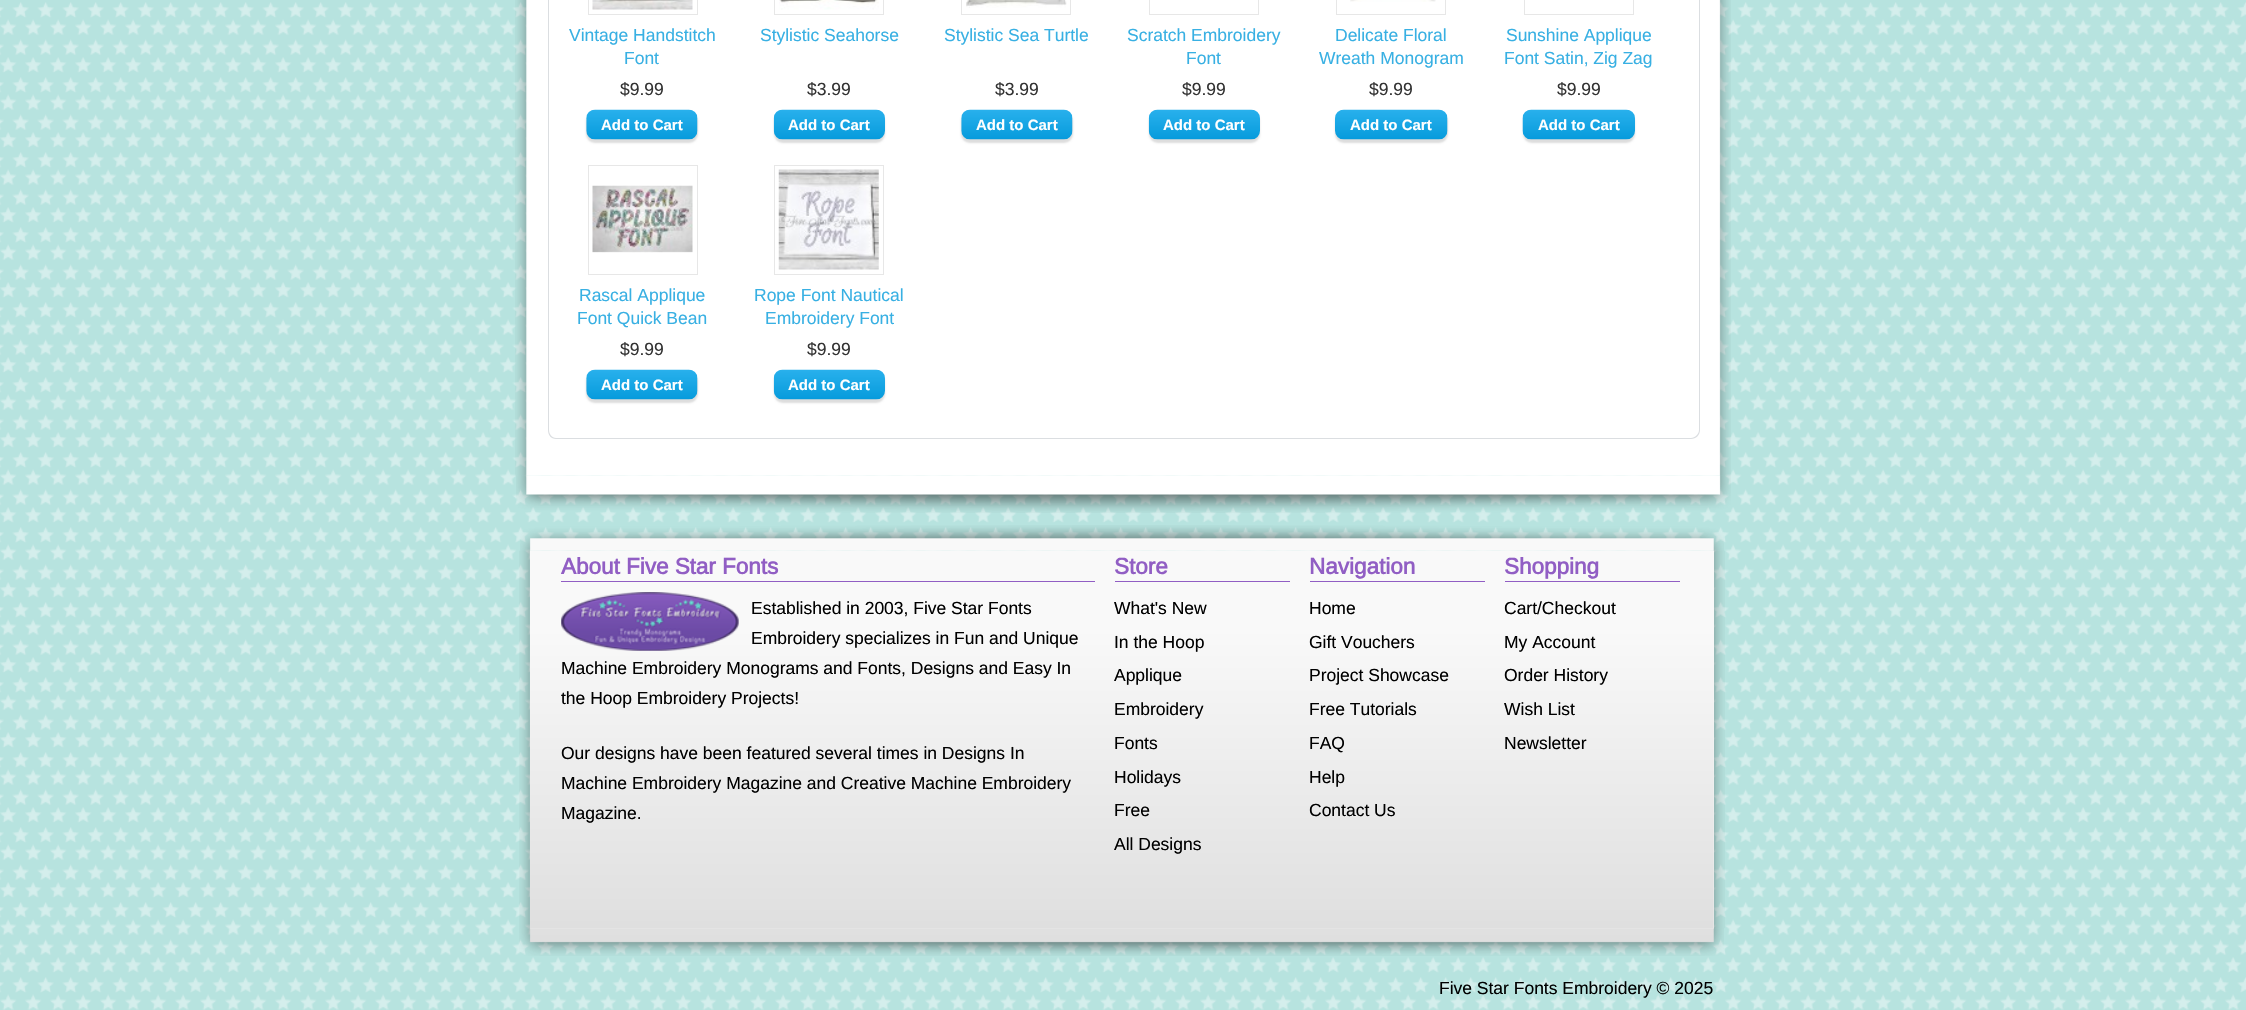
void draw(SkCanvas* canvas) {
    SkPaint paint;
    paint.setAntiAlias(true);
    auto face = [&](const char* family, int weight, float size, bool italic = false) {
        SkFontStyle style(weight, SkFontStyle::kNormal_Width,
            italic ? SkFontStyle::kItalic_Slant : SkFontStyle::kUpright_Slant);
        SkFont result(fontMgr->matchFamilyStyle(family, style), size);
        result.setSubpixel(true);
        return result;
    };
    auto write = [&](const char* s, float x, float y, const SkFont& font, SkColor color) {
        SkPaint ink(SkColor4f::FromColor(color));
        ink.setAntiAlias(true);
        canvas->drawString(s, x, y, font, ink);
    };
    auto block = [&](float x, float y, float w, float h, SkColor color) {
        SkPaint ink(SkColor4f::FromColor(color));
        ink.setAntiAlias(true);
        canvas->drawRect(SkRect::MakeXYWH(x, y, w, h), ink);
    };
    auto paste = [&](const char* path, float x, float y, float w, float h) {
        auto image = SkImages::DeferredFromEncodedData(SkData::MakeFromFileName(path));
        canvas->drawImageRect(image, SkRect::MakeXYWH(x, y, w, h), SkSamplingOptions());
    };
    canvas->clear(SK_ColorWHITE);
    paste("pic1.png", 0, 0, 2246, 1010);
    paste("pic17.png", 516, 475, 1215, 38);
    paste("pic2.png", 515, 0, 1216, 476);
    paint.setColor(SkColorSetRGB(219, 222, 225));
    canvas->drawPath(SkPathBuilder(SkPathFillType::kEvenOdd).moveTo(548, -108).lineTo(1700, -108).lineTo(1700, 430).cubicTo(1700, 435, 1696, 439, 1691, 439).lineTo(556, 439).cubicTo(551, 439, 548, 435, 548, 430).close().moveTo(549, -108).lineTo(1699, -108).lineTo(1699, 430).cubicTo(1699, 434, 1695, 438, 1691, 438).lineTo(556, 438).cubicTo(552, 438, 549, 434, 549, 430).close().detach(), paint);
    paint.setStyle(SkPaint::kStroke_Style);
    paint.setStrokeWidth(1);
    paint.setColor(SkColorSetRGB(231, 231, 231));
    canvas->drawRect(SkRect::MakeXYWH(588.5f, -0.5f, 109, 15), paint);
    paste("pic3.png", 592, 0, 101, 10);
    auto kFont1 = face("Liberation Sans", 400, 17.5f);
    write("Vintage Handstitch", 569, 41, kFont1, SkColorSetRGB(56, 176, 227));
    write("Font", 624, 64, kFont1, SkColorSetRGB(56, 176, 227));
    write("$9.99", 620, 95, kFont1, SkColorSetRGB(51, 51, 51));
    paint.setStyle(SkPaint::kFill_Style);
    paint.setColor(SkColorSetRGB(221, 221, 221));
    paint.setMaskFilter(SkMaskFilter::MakeBlur(kNormal_SkBlurStyle, 1));
    canvas->drawRoundRect(SkRect::MakeXYWH(586, 113, 112, 30), 9, 9, paint);
    paint.setMaskFilter(nullptr);
    paste("pic4.png", 586, 109, 112, 31);
    auto kFont2 = face("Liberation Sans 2", 700, 15);
    write("Add to Cart", 601, 130, kFont2, SK_ColorWHITE);
    paint.setStyle(SkPaint::kStroke_Style);
    paint.setColor(SkColorSetRGB(231, 231, 231));
    canvas->drawRect(SkRect::MakeXYWH(774.5f, -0.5f, 109, 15), paint);
    paste("pic5.png", 779, 0, 100, 10);
    write("Stylistic Seahorse", 760, 41, kFont1, SkColorSetRGB(56, 176, 227));
    write("$3.99", 807, 95, kFont1, SkColorSetRGB(51, 51, 51));
    paint.setStyle(SkPaint::kFill_Style);
    paint.setColor(SkColorSetRGB(221, 221, 221));
    paint.setMaskFilter(SkMaskFilter::MakeBlur(kNormal_SkBlurStyle, 1));
    canvas->drawRoundRect(SkRect::MakeXYWH(774, 113, 111, 30), 9, 9, paint);
    paint.setMaskFilter(nullptr);
    paste("pic6.png", 773, 109, 112, 31);
    write("Add to Cart", 788, 130, kFont2, SK_ColorWHITE);
    paint.setStyle(SkPaint::kStroke_Style);
    paint.setColor(SkColorSetRGB(231, 231, 231));
    canvas->drawRect(SkRect::MakeXYWH(961.5f, -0.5f, 109, 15), paint);
    paste("pic7.png", 966, 0, 101, 8);
    write("Stylistic Sea Turtle", 944, 41, kFont1, SkColorSetRGB(56, 176, 227));
    write("$3.99", 995, 95, kFont1, SkColorSetRGB(51, 51, 51));
    paint.setStyle(SkPaint::kFill_Style);
    paint.setColor(SkColorSetRGB(221, 221, 221));
    paint.setMaskFilter(SkMaskFilter::MakeBlur(kNormal_SkBlurStyle, 1));
    canvas->drawRoundRect(SkRect::MakeXYWH(961, 113, 112, 30), 9, 9, paint);
    paint.setMaskFilter(nullptr);
    paste("pic8.png", 961, 109, 112, 31);
    write("Add to Cart", 976, 130, kFont2, SK_ColorWHITE);
    paint.setStyle(SkPaint::kStroke_Style);
    paint.setColor(SkColorSetRGB(231, 231, 231));
    canvas->drawRect(SkRect::MakeXYWH(1149.5f, -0.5f, 109, 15), paint);
    write("Scratch Embroidery", 1127, 41, kFont1, SkColorSetRGB(56, 176, 227));
    write("Font", 1186, 64, kFont1, SkColorSetRGB(56, 176, 227));
    write("$9.99", 1182, 95, kFont1, SkColorSetRGB(51, 51, 51));
    paint.setStyle(SkPaint::kFill_Style);
    paint.setColor(SkColorSetRGB(221, 221, 221));
    paint.setMaskFilter(SkMaskFilter::MakeBlur(kNormal_SkBlurStyle, 1));
    canvas->drawRoundRect(SkRect::MakeXYWH(1149, 113, 111, 30), 9, 9, paint);
    paint.setMaskFilter(nullptr);
    paste("pic9.png", 1148, 109, 112, 31);
    write("Add to Cart", 1163, 130, kFont2, SK_ColorWHITE);
    paint.setStyle(SkPaint::kStroke_Style);
    paint.setColor(SkColorSetRGB(231, 231, 231));
    canvas->drawRect(SkRect::MakeXYWH(1336.5f, -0.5f, 109, 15), paint);
    paste("pic10.png", 1350, 0, 86, 2);
    write("Delicate Floral", 1335, 41, kFont1, SkColorSetRGB(56, 176, 227));
    write("Wreath Monogram", 1319, 64, kFont1, SkColorSetRGB(56, 176, 227));
    write("$9.99", 1369, 95, kFont1, SkColorSetRGB(51, 51, 51));
    paint.setStyle(SkPaint::kFill_Style);
    paint.setColor(SkColorSetRGB(221, 221, 221));
    paint.setMaskFilter(SkMaskFilter::MakeBlur(kNormal_SkBlurStyle, 1));
    canvas->drawRoundRect(SkRect::MakeXYWH(1335, 113, 113, 30), 9, 9, paint);
    paint.setMaskFilter(nullptr);
    paste("pic11.png", 1335, 109, 113, 31);
    write("Add to Cart", 1350, 130, kFont2, SK_ColorWHITE);
    paint.setStyle(SkPaint::kStroke_Style);
    paint.setColor(SkColorSetRGB(231, 231, 231));
    canvas->drawRect(SkRect::MakeXYWH(1524.5f, -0.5f, 109, 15), paint);
    write("Sunshine Applique", 1506, 41, kFont1, SkColorSetRGB(56, 176, 227));
    write("Font Satin, Zig Zag", 1504, 64, kFont1, SkColorSetRGB(56, 176, 227));
    write("$9.99", 1557, 95, kFont1, SkColorSetRGB(51, 51, 51));
    paint.setStyle(SkPaint::kFill_Style);
    paint.setColor(SkColorSetRGB(221, 221, 221));
    paint.setMaskFilter(SkMaskFilter::MakeBlur(kNormal_SkBlurStyle, 1));
    canvas->drawRoundRect(SkRect::MakeXYWH(1523, 113, 112, 30), 9, 9, paint);
    paint.setMaskFilter(nullptr);
    paste("pic12.png", 1522, 109, 113, 31);
    write("Add to Cart", 1538, 130, kFont2, SK_ColorWHITE);
    paint.setStyle(SkPaint::kStroke_Style);
    paint.setColor(SkColorSetRGB(231, 231, 231));
    canvas->drawRect(SkRect::MakeXYWH(588.5f, 165.5f, 109, 109), paint);
    paste("pic13.png", 592, 185, 101, 68);
    write("Rascal Applique", 579, 301, kFont1, SkColorSetRGB(56, 176, 227));
    write("Font Quick Bean", 577, 324, kFont1, SkColorSetRGB(56, 176, 227));
    write("$9.99", 620, 355, kFont1, SkColorSetRGB(51, 51, 51));
    paint.setStyle(SkPaint::kFill_Style);
    paint.setColor(SkColorSetRGB(221, 221, 221));
    paint.setMaskFilter(SkMaskFilter::MakeBlur(kNormal_SkBlurStyle, 1));
    canvas->drawRoundRect(SkRect::MakeXYWH(586, 373, 112, 30), 9, 9, paint);
    paint.setMaskFilter(nullptr);
    paste("pic14.png", 586, 369, 112, 31);
    write("Add to Cart", 601, 390, kFont2, SK_ColorWHITE);
    paint.setStyle(SkPaint::kStroke_Style);
    paint.setColor(SkColorSetRGB(231, 231, 231));
    canvas->drawRect(SkRect::MakeXYWH(774.5f, 165.5f, 109, 109), paint);
    paste("pic15.png", 778, 169, 101, 101);
    write("Rope Font Nautical", 754, 301, kFont1, SkColorSetRGB(56, 176, 227));
    write("Embroidery Font", 765, 324, kFont1, SkColorSetRGB(56, 176, 227));
    write("$9.99", 807, 355, kFont1, SkColorSetRGB(51, 51, 51));
    paint.setStyle(SkPaint::kFill_Style);
    paint.setColor(SkColorSetRGB(221, 221, 221));
    paint.setMaskFilter(SkMaskFilter::MakeBlur(kNormal_SkBlurStyle, 1));
    canvas->drawRoundRect(SkRect::MakeXYWH(774, 373, 111, 30), 9, 9, paint);
    paint.setMaskFilter(nullptr);
    paste("pic16.png", 773, 369, 112, 31);
    write("Add to Cart", 788, 390, kFont2, SK_ColorWHITE);
    paste("pic18.png", 520, 525, 1204, 26);
    paste("pic19.png", 519, 550, 1206, 379);
    block(530, 551, 1184, 378, SkColorSetRGB(249, 249, 249));
    paste("pic20.png", 530, 550, 1184, 379);
    block(561, 581, 534, 1, SkColorSetRGB(145, 94, 196));
    auto kFont3 = face("Liberation Sans", 700, 22.5f);
    write("About Five Star Fonts", 561, 574, kFont3, SkColorSetRGB(145, 94, 196));
    paste("pic21.png", 561, 592, 178, 59);
    write("Established in 2003, Five Star Fonts", 751, 614, kFont1, SK_ColorBLACK);
    write("Embroidery specializes in Fun and Unique", 751, 644, kFont1, SK_ColorBLACK);
    write("Machine Embroidery Monograms and Fonts, Designs and Easy In", 561, 674, kFont1, SK_ColorBLACK);
    write("the Hoop Embroidery Projects!", 561, 704, kFont1, SK_ColorBLACK);
    write("Our designs have been featured several times in Designs In", 561, 759, kFont1, SK_ColorBLACK);
    write("Machine Embroidery Magazine and Creative Machine Embroidery", 561, 789, kFont1, SK_ColorBLACK);
    write("Magazine.", 561, 819, kFont1, SK_ColorBLACK);
    block(1115, 581, 175, 1, SkColorSetRGB(145, 94, 196));
    write("Store", 1114, 574, kFont3, SkColorSetRGB(145, 94, 196));
    write("What's New", 1114, 614, kFont1, SK_ColorBLACK);
    write("In the Hoop", 1114, 648, kFont1, SK_ColorBLACK);
    write("Applique", 1114, 681, kFont1, SK_ColorBLACK);
    write("Embroidery", 1114, 715, kFont1, SK_ColorBLACK);
    write("Fonts", 1114, 749, kFont1, SK_ColorBLACK);
    write("Holidays", 1114, 783, kFont1, SK_ColorBLACK);
    write("Free", 1114, 816, kFont1, SK_ColorBLACK);
    write("All Designs", 1114, 850, kFont1, SK_ColorBLACK);
    block(1310, 581, 175, 1, SkColorSetRGB(145, 94, 196));
    write("Navigation", 1309, 574, kFont3, SkColorSetRGB(145, 94, 196));
    write("Home", 1309, 614, kFont1, SK_ColorBLACK);
    write("Gift Vouchers", 1309, 648, kFont1, SK_ColorBLACK);
    write("Project Showcase", 1309, 681, kFont1, SK_ColorBLACK);
    write("Free Tutorials", 1309, 715, kFont1, SK_ColorBLACK);
    write("FAQ", 1309, 749, kFont1, SK_ColorBLACK);
    write("Help", 1309, 783, kFont1, SK_ColorBLACK);
    write("Contact Us", 1309, 816, kFont1, SK_ColorBLACK);
    block(1505, 581, 175, 1, SkColorSetRGB(145, 94, 196));
    write("Shopping", 1504, 574, kFont3, SkColorSetRGB(145, 94, 196));
    write("Cart/Checkout", 1504, 614, kFont1, SK_ColorBLACK);
    write("My Account", 1504, 648, kFont1, SK_ColorBLACK);
    write("Order History", 1504, 681, kFont1, SK_ColorBLACK);
    write("Wish List", 1504, 715, kFont1, SK_ColorBLACK);
    write("Newsletter", 1504, 749, kFont1, SK_ColorBLACK);
    paste("pic22.png", 519, 928, 1205, 28);
    write("Five Star Fonts Embroidery © 2025", 1439, 994, kFont1, SK_ColorBLACK);
}
